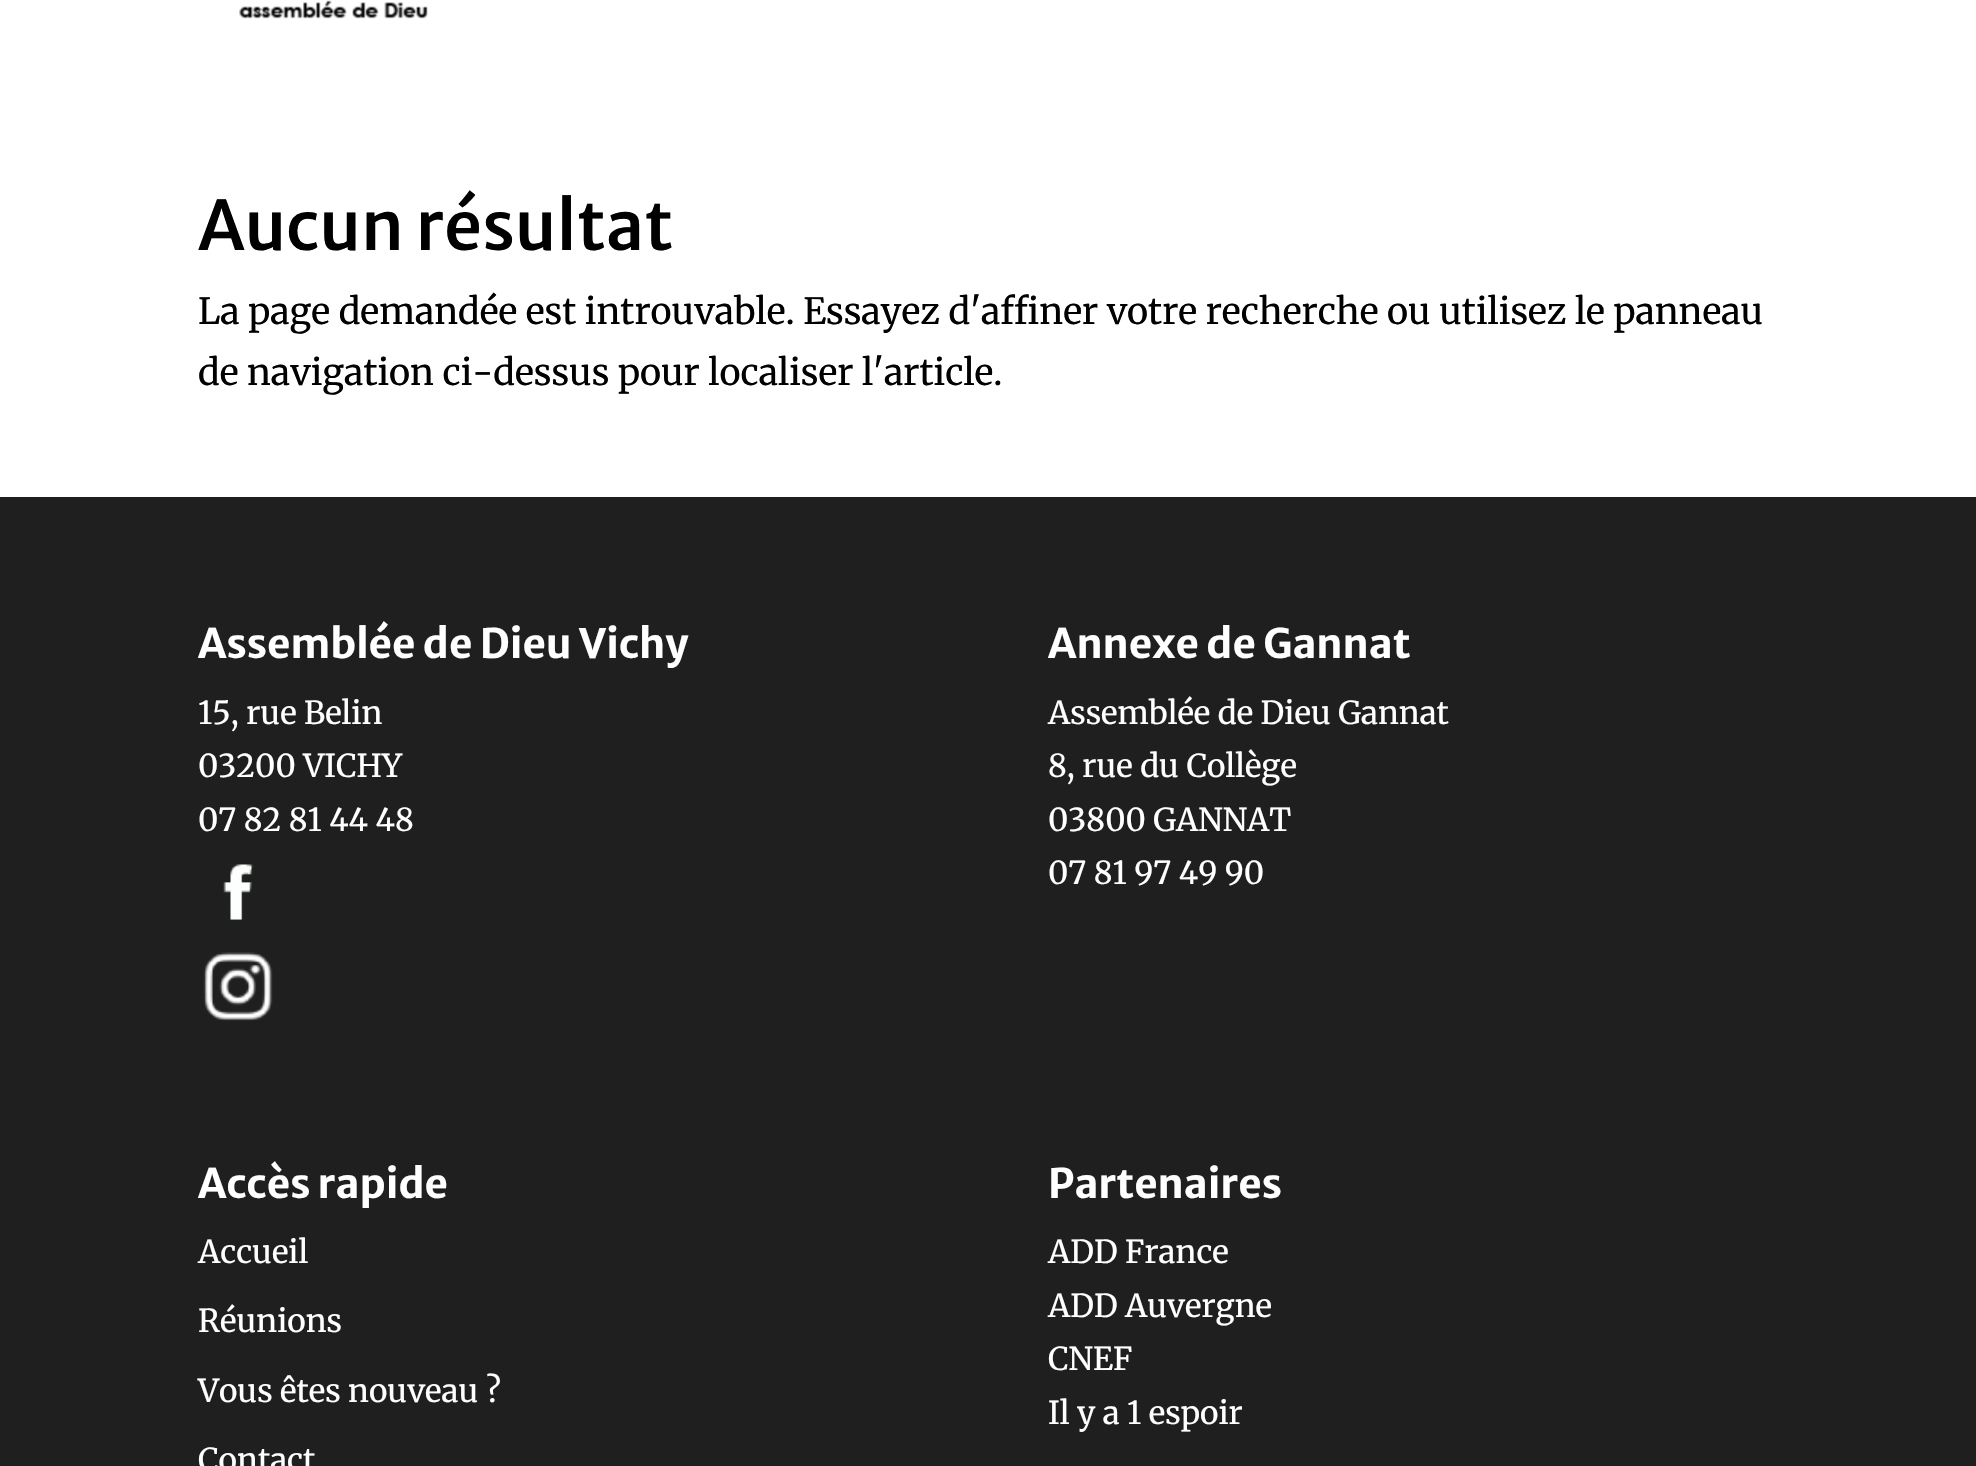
void draw(SkCanvas* canvas) {
    SkPaint paint;
    paint.setAntiAlias(true);
    auto face = [&](const char* family, int weight, float size, bool italic = false) {
        SkFontStyle style(weight, SkFontStyle::kNormal_Width,
            italic ? SkFontStyle::kItalic_Slant : SkFontStyle::kUpright_Slant);
        SkFont result(fontMgr->matchFamilyStyle(family, style), size);
        result.setSubpixel(true);
        return result;
    };
    auto write = [&](const char* s, float x, float y, const SkFont& font, SkColor color) {
        SkPaint ink(SkColor4f::FromColor(color));
        ink.setAntiAlias(true);
        canvas->drawString(s, x, y, font, ink);
    };
    auto block = [&](float x, float y, float w, float h, SkColor color) {
        SkPaint ink(SkColor4f::FromColor(color));
        ink.setAntiAlias(true);
        canvas->drawRect(SkRect::MakeXYWH(x, y, w, h), ink);
    };
    auto paste = [&](const char* path, float x, float y, float w, float h) {
        auto image = SkImages::DeferredFromEncodedData(SkData::MakeFromFileName(path));
        canvas->drawImageRect(image, SkRect::MakeXYWH(x, y, w, h), SkSamplingOptions());
    };
    canvas->clear(SK_ColorWHITE);
    paste("pic1.png", 239, 0, 189, 19);
    auto kFont1 = face("Merriweather Sans", 500, 67.5f);
    write("Aucun résultat", 198, 250, kFont1, SK_ColorBLACK);
    auto kFont2 = face("Merriweather", 400, 36);
    write("La page demandée est introuvable. Essayez d'affiner votre recherche ou utilisez le panneau", 198, 324, kFont2, SK_ColorBLACK);
    write("de navigation ci-dessus pour localiser l'article.", 198, 385, kFont2, SK_ColorBLACK);
    block(0, 497, 1976, 969, SkColorSetRGB(31, 31, 31));
    auto kFont3 = face("Merriweather Sans", 700, 40.5f);
    write("Assemblée de Dieu Vichy", 198, 658, kFont3, SK_ColorWHITE);
    auto kFont4 = face("Merriweather", 400, 31.5f);
    write("15, rue Belin", 198, 724, kFont4, SK_ColorWHITE);
    write("03200 VICHY", 198, 777, kFont4, SK_ColorWHITE);
    write("07 82 81 44 48", 198, 831, kFont4, SK_ColorWHITE);
    paste("pic2.png", 223, 864, 31, 56);
    paste("pic3.png", 203, 952, 70, 69);
    write("Annexe de Gannat", 1048, 658, kFont3, SK_ColorWHITE);
    write("Assemblée de Dieu Gannat", 1048, 724, kFont4, SK_ColorWHITE);
    write("8, rue du Collège", 1048, 777, kFont4, SK_ColorWHITE);
    write("03800 GANNAT", 1048, 831, kFont4, SK_ColorWHITE);
    write("07 81 97 49 90", 1048, 884, kFont4, SK_ColorWHITE);
    write("Accès rapide", 198, 1198, kFont3, SK_ColorWHITE);
    write("Accueil", 198, 1263, kFont4, SK_ColorWHITE);
    write("Réunions", 198, 1332, kFont4, SK_ColorWHITE);
    write("Vous êtes nouveau ?", 198, 1402, kFont4, SK_ColorWHITE);
    write("Contact", 198, 1471, kFont4, SK_ColorWHITE);
    write("Partenaires", 1048, 1198, kFont3, SK_ColorWHITE);
    write("ADD France", 1048, 1263, kFont4, SK_ColorWHITE);
    write("ADD Auvergne", 1048, 1317, kFont4, SK_ColorWHITE);
    write("CNEF", 1048, 1370, kFont4, SK_ColorWHITE);
    write("Il y a 1 espoir", 1048, 1424, kFont4, SK_ColorWHITE);
}
